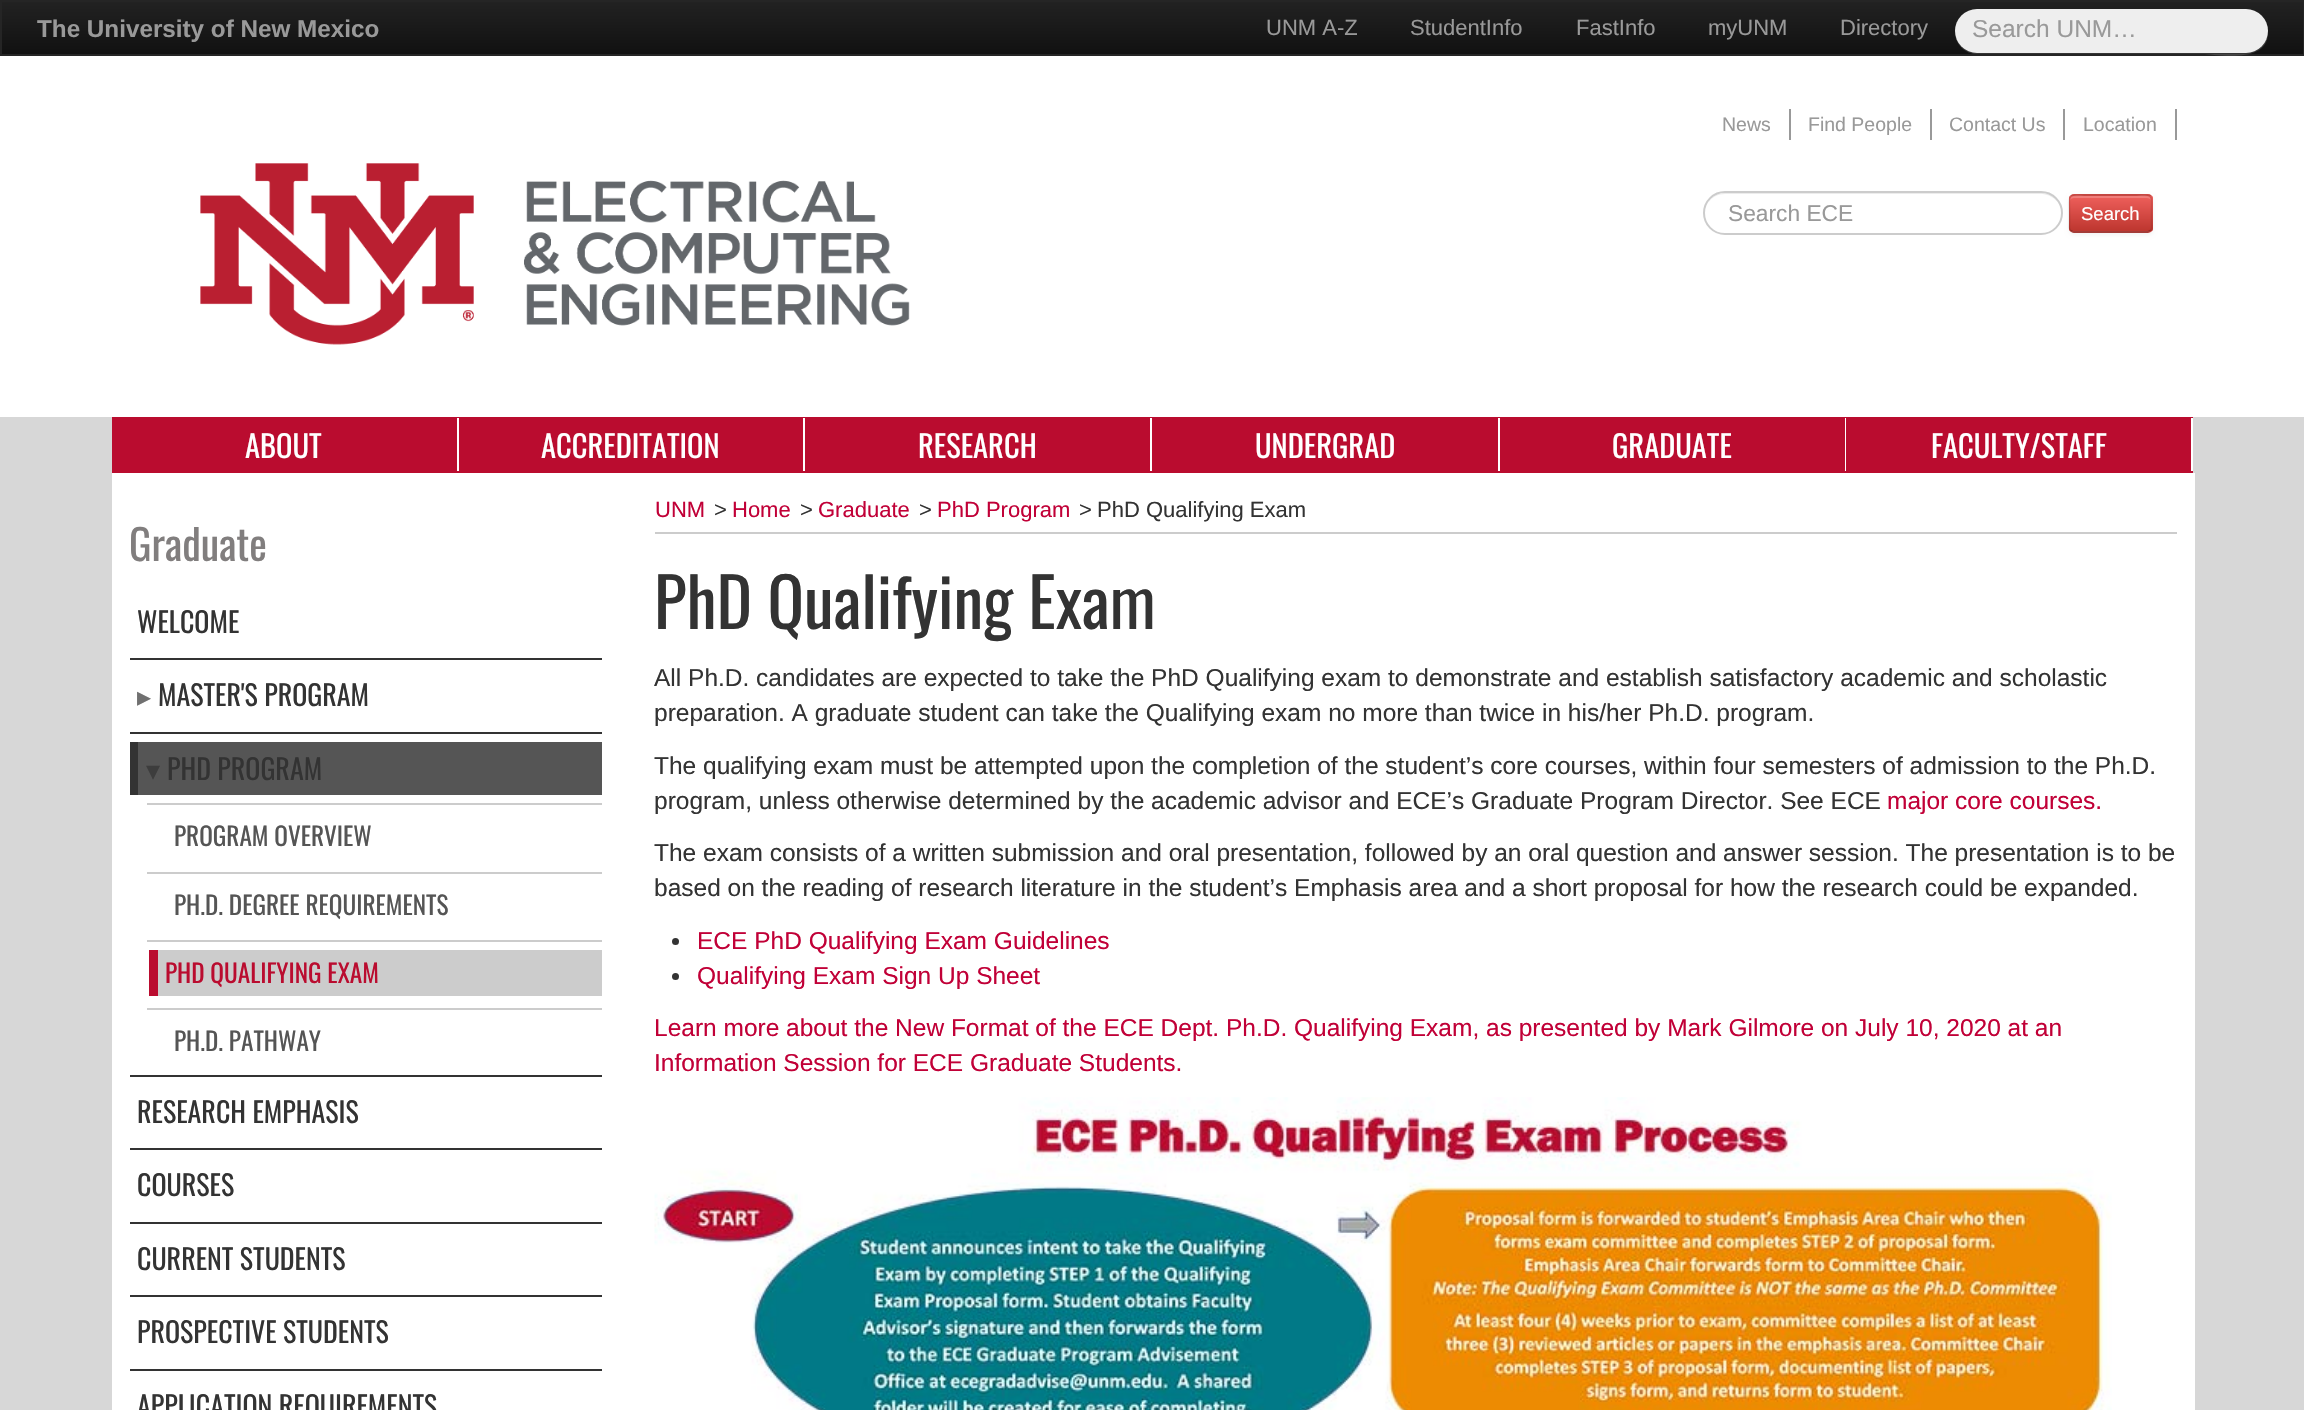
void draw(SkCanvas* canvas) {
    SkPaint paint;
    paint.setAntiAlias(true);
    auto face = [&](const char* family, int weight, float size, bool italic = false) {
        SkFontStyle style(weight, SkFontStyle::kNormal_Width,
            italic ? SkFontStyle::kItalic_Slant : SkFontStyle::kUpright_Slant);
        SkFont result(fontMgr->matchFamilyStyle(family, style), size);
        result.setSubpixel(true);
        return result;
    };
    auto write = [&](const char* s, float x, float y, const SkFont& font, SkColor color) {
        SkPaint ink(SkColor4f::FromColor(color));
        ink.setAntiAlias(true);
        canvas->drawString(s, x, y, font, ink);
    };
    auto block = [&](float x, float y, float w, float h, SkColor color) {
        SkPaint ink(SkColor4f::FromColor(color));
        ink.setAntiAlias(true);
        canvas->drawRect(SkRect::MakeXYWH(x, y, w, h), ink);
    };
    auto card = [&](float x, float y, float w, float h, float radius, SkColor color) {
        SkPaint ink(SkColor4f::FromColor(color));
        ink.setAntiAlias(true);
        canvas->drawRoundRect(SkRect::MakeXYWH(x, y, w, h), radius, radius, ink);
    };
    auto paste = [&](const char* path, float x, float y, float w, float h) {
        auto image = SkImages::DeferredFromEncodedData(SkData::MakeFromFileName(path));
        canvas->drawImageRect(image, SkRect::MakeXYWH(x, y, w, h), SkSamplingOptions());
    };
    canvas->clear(SkColorSetRGB(215, 215, 215));
    {
        const SkColor colors[] = {SkColorSetRGB(34, 34, 34), SkColorSetRGB(17, 17, 17)};
        const float stops[] = {0, 1};
        const SkPoint ends[] = {{1152, 1.7f}, {1152, 54}};
        paint.setShader(SkGradientShader::MakeLinear(ends, colors, stops, 2, SkTileMode::kClamp));
        paint.setAlpha(255);
    }
    canvas->drawRect(SkRect::MakeXYWH(2, 2, 2301, 52), paint);
    paint.setStyle(SkPaint::kStroke_Style);
    paint.setStrokeWidth(2);
    paint.setShader(nullptr);
    paint.setColor(SkColorSetRGB(37, 37, 37));
    canvas->drawRect(SkRect::MakeXYWH(1, 1, 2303, 54), paint);
    auto kFont1 = face("Liberation Sans", 700, 24.25f);
    write("The University of New Mexico", 37, 37, kFont1, SkColorSetRGB(153, 153, 153));
    auto kFont2 = face("Liberation Sans", 400, 22);
    write("UNM A-Z", 1266, 35, kFont2, SkColorSetRGB(153, 153, 153));
    write("StudentInfo", 1410, 35, kFont2, SkColorSetRGB(153, 153, 153));
    write("FastInfo", 1576, 35, kFont2, SkColorSetRGB(153, 153, 153));
    write("myUNM", 1708, 35, kFont2, SkColorSetRGB(153, 153, 153));
    write("Directory", 1840, 35, kFont2, SkColorSetRGB(153, 153, 153));
    paint.setStyle(SkPaint::kFill_Style);
    paint.setColor(SkColorSetARGB(38, 255, 255, 255));
    canvas->drawPath(SkPathBuilder().moveTo(1955, 34).cubicTo(1956, 45, 1966, 54, 1976, 54).lineTo(2202, 54).cubicTo(2216, 54, 2269, 65, 2268, 32).cubicTo(2267, 43, 2258, 52, 2246, 52).lineTo(1977, 52).cubicTo(1966, 52, 1957, 45, 1955, 34).close().detach(), paint);
    card(1955, 9, 313, 44, 22, SkColorSetRGB(238, 238, 238));
    auto kFont3 = face("Liberation Sans", 400, 24.5f);
    write("Search UNM…", 1972, 37, kFont3, SkColorSetRGB(153, 153, 153));
    block(0, 56, 2304, 361, SK_ColorWHITE);
    block(1789, 109, 2, 31, SkColorSetRGB(153, 153, 153));
    auto kFont4 = face("Liberation Sans", 400, 19.5f);
    write("News", 1722, 131, kFont4, SkColorSetRGB(153, 153, 153));
    block(1930, 109, 2, 31, SkColorSetRGB(153, 153, 153));
    write("Find People", 1808, 131, kFont4, SkColorSetRGB(153, 153, 153));
    block(2063, 109, 2, 31, SkColorSetRGB(153, 153, 153));
    write("Contact Us", 1949, 131, kFont4, SkColorSetRGB(153, 153, 153));
    block(2175, 109, 2, 31, SkColorSetRGB(153, 153, 153));
    write("Location", 2083, 131, kFont4, SkColorSetRGB(153, 153, 153));
    paste("pic1.png", 200, 163, 710, 182);
    paint.setColor(SkColorSetRGB(236, 236, 236));
    canvas->drawPath(SkPathBuilder().moveTo(1725, 194).lineTo(2041, 194).cubicTo(2052, 194, 2062, 203, 2062, 214).lineTo(2062, 213).cubicTo(2062, 202, 2053, 193, 2042, 193).lineTo(1725, 193).cubicTo(1718, 193, 1711, 197, 1708, 203).cubicTo(1712, 197, 1718, 194, 1725, 194).close().detach(), paint);
    paint.setStyle(SkPaint::kStroke_Style);
    paint.setColor(SkColorSetRGB(204, 204, 204));
    canvas->drawRoundRect(SkRect::MakeXYWH(1704, 192, 358, 42), 21, 21, paint);
    auto kFont5 = face("Liberation Sans", 400, 22.75f);
    write("Search ECE", 1728, 221, kFont5, SkColorSetRGB(153, 153, 153));
    paint.setStyle(SkPaint::kFill_Style);
    paint.setColor(SkColorSetARGB(13, 0, 0, 0));
    paint.setMaskFilter(SkMaskFilter::MakeBlur(kNormal_SkBlurStyle, 2));
    canvas->drawRoundRect(SkRect::MakeXYWH(2069, 196, 84, 39), 5, 5, paint);
    paint.setMaskFilter(nullptr);
    card(2069, 194, 84, 39, 5, SkColorSetRGB(218, 79, 73));
    canvas->save();
    canvas->clipPath(SkPathBuilder().moveTo(2074, 194).lineTo(2148, 194).cubicTo(2151, 194, 2153, 196, 2153, 199).lineTo(2153, 228).cubicTo(2153, 231, 2151, 233, 2148, 233).lineTo(2074, 233).cubicTo(2071, 233, 2069, 231, 2069, 228).lineTo(2069, 199).cubicTo(2069, 196, 2071, 194, 2074, 194).close().detach(), true);
    {
        const SkColor colors[] = {SkColorSetRGB(238, 95, 91), SkColorSetRGB(189, 54, 47)};
        const float stops[] = {0, 1};
        const SkPoint ends[] = {{2111, 196}, {2111, 231}};
        paint.setShader(SkGradientShader::MakeLinear(ends, colors, stops, 2, SkTileMode::kClamp));
        paint.setAlpha(255);
    }
    canvas->drawRect(SkRect::MakeXYWH(2069, 196, 84, 35), paint);
    canvas->restore();
    paint.setShader(nullptr);
    paint.setColor(SkColorSetARGB(51, 255, 255, 255));
    canvas->drawPath(SkPathBuilder().moveTo(2074, 198).lineTo(2147, 198).cubicTo(2149, 198, 2151, 199, 2151, 201).cubicTo(2151, 193, 2140, 196, 2135, 196).lineTo(2086, 196).cubicTo(2081, 196, 2070, 193, 2070, 201).cubicTo(2070, 199, 2072, 198, 2074, 198).close().detach(), paint);
    paint.setStyle(SkPaint::kStroke_Style);
    paint.setStrokeWidth(1.8f);
    paint.setColor(SkColorSetARGB(64, 0, 0, 0));
    canvas->drawPath(SkPathBuilder().moveTo(2150.5f, 230.5f).lineTo(2147.5f, 232).lineTo(2073.5f, 232).lineTo(2070.5f, 230.5f).detach(), paint);
    paint.setColor(SkColorSetARGB(26, 0, 0, 0));
    canvas->drawPath(SkPathBuilder().moveTo(2070.5f, 230.5f).cubicTo(2068.5f, 228.5f, 2069.5f, 225, 2069.5f, 223).lineTo(2069.5f, 213.5f).cubicTo(2069.5f, 193.5f, 2066, 195, 2086, 195).lineTo(2135, 195).cubicTo(2155, 195, 2151.5f, 193.5f, 2151.5f, 213.5f).lineTo(2151.5f, 223).cubicTo(2151.5f, 225, 2152.5f, 228.5f, 2150.5f, 230.5f).detach(), paint);
    auto kFont6 = face("Liberation Sans", 400, 18.5f);
    write("Search", 2081, 220, kFont6, SK_ColorWHITE);
    block(112, 417, 2081, 56, SkColorSetRGB(186, 12, 47));
    block(457, 418, 2, 53, SK_ColorWHITE);
    auto kFont7 = face("Oswald", 400, 30.5f);
    write("ABOUT", 245, 458, kFont7, SK_ColorWHITE);
    block(803, 418, 2, 53, SK_ColorWHITE);
    write("ACCREDITATION", 541, 458, kFont7, SK_ColorWHITE);
    block(1150, 418, 2, 53, SK_ColorWHITE);
    write("RESEARCH", 918, 458, kFont7, SK_ColorWHITE);
    block(1498, 418, 2, 53, SK_ColorWHITE);
    write("UNDERGRAD", 1255, 458, kFont7, SK_ColorWHITE);
    block(1845, 418, 1, 53, SK_ColorWHITE);
    write("GRADUATE", 1612, 458, kFont7, SK_ColorWHITE);
    block(2191, 418, 2, 53, SK_ColorWHITE);
    write("FACULTY/STAFF", 1931, 458, kFont7, SK_ColorWHITE);
    block(112, 473, 2083, 937, SK_ColorWHITE);
    auto kFont8 = face("Oswald", 400, 42);
    write("Graduate", 129, 561, kFont8, SkColorSetRGB(129, 126, 126));
    block(130, 658, 472, 2, SkColorSetRGB(51, 51, 51));
    auto kFont9 = face("Oswald", 400, 28);
    write("WELCOME", 137, 633, kFont9, SkColorSetRGB(51, 51, 51));
    block(130, 732, 472, 2, SkColorSetRGB(51, 51, 51));
    auto kFont10 = face("DejaVu Sans", 400, 28);
    write("▸", 137, 706, kFont10, SkColorSetRGB(112, 112, 112));
    write("MASTER'S PROGRAM", 158, 706, kFont9, SkColorSetRGB(51, 51, 51));
    block(130, 1075, 472, 2, SkColorSetRGB(51, 51, 51));
    block(138, 742, 464, 53, SkColorSetRGB(85, 85, 85));
    block(130, 742, 8, 53, SkColorSetRGB(51, 51, 51));
    write("▾", 146, 780, kFont10, SkColorSetRGB(61, 61, 61));
    write("PHD PROGRAM", 167, 780, kFont9, SkColorSetRGB(51, 51, 51));
    block(147, 803, 455, 2, SkColorSetRGB(204, 204, 204));
    auto kFont11 = face("Oswald", 400, 25.25f);
    write("PROGRAM OVERVIEW", 174, 846, kFont11, SkColorSetRGB(85, 85, 85));
    block(147, 872, 455, 2, SkColorSetRGB(204, 204, 204));
    write("PH.D. DEGREE REQUIREMENTS", 174, 915, kFont11, SkColorSetRGB(85, 85, 85));
    block(147, 940, 455, 2, SkColorSetRGB(204, 204, 204));
    block(158, 950, 444, 46, SkColorSetRGB(204, 204, 204));
    block(149, 950, 9, 46, SkColorSetRGB(186, 12, 47));
    write("PHD QUALIFYING EXAM", 165, 983, kFont11, SkColorSetRGB(186, 12, 47));
    block(147, 1008, 455, 2, SkColorSetRGB(204, 204, 204));
    write("PH.D. PATHWAY", 174, 1051, kFont11, SkColorSetRGB(85, 85, 85));
    block(130, 1148, 472, 2, SkColorSetRGB(51, 51, 51));
    write("RESEARCH EMPHASIS", 137, 1123, kFont9, SkColorSetRGB(51, 51, 51));
    block(130, 1222, 472, 2, SkColorSetRGB(51, 51, 51));
    write("COURSES", 137, 1196, kFont9, SkColorSetRGB(51, 51, 51));
    block(130, 1295, 472, 2, SkColorSetRGB(51, 51, 51));
    write("CURRENT STUDENTS", 137, 1270, kFont9, SkColorSetRGB(51, 51, 51));
    block(130, 1369, 472, 2, SkColorSetRGB(51, 51, 51));
    write("PROSPECTIVE STUDENTS", 137, 1343, kFont9, SkColorSetRGB(51, 51, 51));
    write("APPLICATION REQUIREMENTS", 137, 1417, kFont9, SkColorSetRGB(51, 51, 51));
    block(655, 532, 1522, 2, SkColorSetRGB(204, 204, 204));
    write("UNM", 655, 517, kFont2, SkColorSetRGB(193, 0, 55));
    write(">", 714, 517, kFont2, SkColorSetRGB(51, 51, 51));
    write("Home", 732, 517, kFont2, SkColorSetRGB(193, 0, 55));
    write(">", 800, 517, kFont2, SkColorSetRGB(51, 51, 51));
    write("Graduate", 818, 517, kFont2, SkColorSetRGB(193, 0, 55));
    write(">", 919, 517, kFont2, SkColorSetRGB(51, 51, 51));
    write("PhD Program", 937, 517, kFont2, SkColorSetRGB(193, 0, 55));
    write(">", 1079, 517, kFont2, SkColorSetRGB(51, 51, 51));
    write("PhD Qualifying Exam", 1097, 517, kFont2, SkColorSetRGB(51, 51, 51));
    auto kFont12 = face("Oswald", 400, 67.5f);
    write("PhD Qualifying Exam", 654, 629, kFont12, SkColorSetRGB(51, 51, 51));
    write("All Ph.D. candidates are expected to take the PhD Qualifying exam to demonstrate and establish satisfactory academic and scholastic", 654, 686, kFont3, SkColorSetRGB(51, 51, 51));
    write("preparation. A graduate student can take the Qualifying exam no more than twice in his/her Ph.D. program.", 654, 721, kFont3, SkColorSetRGB(51, 51, 51));
    write("The qualifying exam must be attempted upon the completion of the student’s core courses, within four semesters of admission to the Ph.D.", 654, 774, kFont3, SkColorSetRGB(51, 51, 51));
    write("program, unless otherwise determined by the academic advisor and ECE’s Graduate Program Director. See ECE", 654, 809, kFont3, SkColorSetRGB(51, 51, 51));
    write("major core courses.", 1887, 809, kFont3, SkColorSetRGB(193, 0, 55));
    write("The exam consists of a written submission and oral presentation, followed by an oral question and answer session. The presentation is to be", 654, 861, kFont3, SkColorSetRGB(51, 51, 51));
    write("based on the reading of research literature in the student’s Emphasis area and a short proposal for how the research could be expanded.", 654, 896, kFont3, SkColorSetRGB(51, 51, 51));
    paint.setStyle(SkPaint::kFill_Style);
    paint.setColor(SkColorSetRGB(51, 51, 51));
    canvas->drawCircle(675.5f, 941.5f, 3.5f, paint);
    write("ECE PhD Qualifying Exam Guidelines", 697, 949, kFont3, SkColorSetRGB(193, 0, 55));
    canvas->drawCircle(675.5f, 976.5f, 3.5f, paint);
    write("Qualifying Exam Sign Up Sheet", 697, 984, kFont3, SkColorSetRGB(193, 0, 55));
    write("Learn more about the New Format of the ECE Dept. Ph.D. Qualifying Exam, as presented by Mark Gilmore on July 10, 2020 at an", 654, 1036, kFont3, SkColorSetRGB(193, 0, 55));
    write("Information Session for ECE Graduate Students.", 654, 1071, kFont3, SkColorSetRGB(193, 0, 55));
    paste("pic2.png", 654, 1097, 1458, 313);
}
